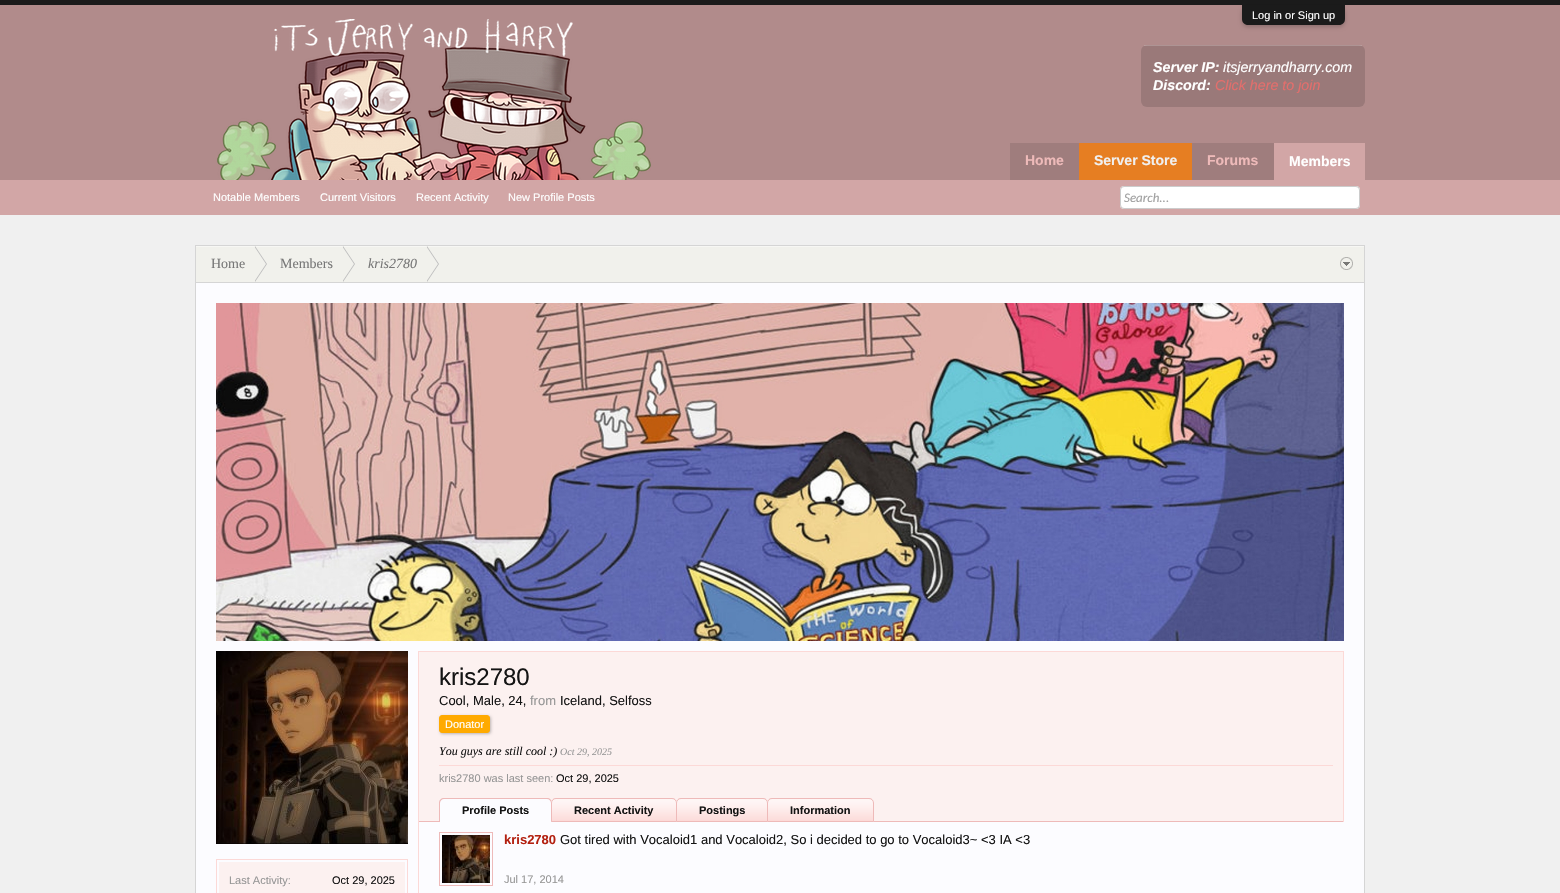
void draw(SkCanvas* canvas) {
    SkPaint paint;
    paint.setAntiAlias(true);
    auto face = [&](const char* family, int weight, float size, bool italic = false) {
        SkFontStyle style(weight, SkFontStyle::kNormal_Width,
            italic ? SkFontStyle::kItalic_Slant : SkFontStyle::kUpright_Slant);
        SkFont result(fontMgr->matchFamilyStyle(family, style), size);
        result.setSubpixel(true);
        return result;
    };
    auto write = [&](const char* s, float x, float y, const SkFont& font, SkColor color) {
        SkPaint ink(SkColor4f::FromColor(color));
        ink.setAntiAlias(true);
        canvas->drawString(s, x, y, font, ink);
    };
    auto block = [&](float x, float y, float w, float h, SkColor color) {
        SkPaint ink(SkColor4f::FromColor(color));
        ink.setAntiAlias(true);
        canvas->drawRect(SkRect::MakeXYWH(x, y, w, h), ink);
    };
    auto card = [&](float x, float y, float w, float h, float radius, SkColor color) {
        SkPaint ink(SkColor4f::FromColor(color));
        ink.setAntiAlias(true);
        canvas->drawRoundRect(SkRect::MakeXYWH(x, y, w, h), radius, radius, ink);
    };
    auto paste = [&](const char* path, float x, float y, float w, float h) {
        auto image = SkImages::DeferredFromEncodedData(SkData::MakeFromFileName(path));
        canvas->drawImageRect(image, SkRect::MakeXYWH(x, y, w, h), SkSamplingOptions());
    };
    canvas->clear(SkColorSetRGB(240, 240, 240));
    block(0, 0, 1560, 5, SkColorSetRGB(27, 27, 27));
    block(0, 5, 1560, 175, SkColorSetRGB(177, 139, 139));
    paint.setColor(SkColorSetARGB(51, 0, 0, 0));
    paint.setMaskFilter(SkMaskFilter::MakeBlur(kNormal_SkBlurStyle, 2));
    canvas->drawRoundRect(SkRect::MakeXYWH(1242, 7, 103, 20), 6, 6, paint);
    paint.setMaskFilter(nullptr);
    paint.setColor(SkColorSetRGB(27, 27, 27));
    canvas->drawPath(SkPathBuilder().moveTo(1242, 5).lineTo(1345, 5).lineTo(1345, 19).cubicTo(1345, 22.5f, 1342.5f, 25, 1339, 25).lineTo(1248, 25).cubicTo(1244.5f, 25, 1242, 22.5f, 1242, 19).close().detach(), paint);
    auto kFont1 = face("Liberation Sans", 400, 11);
    write("Log in or Sign up", 1252, 19, kFont1, SK_ColorWHITE);
    paste("pic1.png", 217, 19, 434, 161);
    card(1141, 45, 224, 62, 6, SkColorSetRGB(154, 121, 121));
    block(1144, 45, 218, 1, SkColorSetARGB(51, 255, 255, 255));
    auto kFont2 = face("Liberation Sans", 700, 14.25f, true);
    write("Server IP:", 1153, 72, kFont2, SK_ColorWHITE);
    auto kFont3 = face("Liberation Sans", 400, 14.25f, true);
    write("itsjerryandharry.com", 1223, 72, kFont3, SK_ColorWHITE);
    write("Discord:", 1153, 90, kFont2, SK_ColorWHITE);
    write("Click here to join", 1215, 90, kFont3, SkColorSetRGB(228, 110, 108));
    block(1010, 143, 264, 37, SkColorSetRGB(159, 125, 125));
    block(1274, 143, 91, 37, SkColorSetRGB(210, 166, 166));
    auto kFont4 = face("Liberation Sans", 700, 14);
    write("Members", 1289, 166, kFont4, SK_ColorWHITE);
    block(0, 180, 1560, 35, SkColorSetRGB(210, 166, 166));
    write("Notable Members", 213, 201, kFont1, SK_ColorWHITE);
    write("Current Visitors", 320, 201, kFont1, SK_ColorWHITE);
    write("Recent Activity", 416, 201, kFont1, SK_ColorWHITE);
    write("New Profile Posts", 508, 201, kFont1, SK_ColorWHITE);
    write("Home", 1025, 165, kFont4, SkColorSetRGB(238, 186, 185));
    block(1079, 143, 113, 37, SkColorSetRGB(230, 126, 34));
    write("Server Store", 1094, 165, kFont4, SkColorSetRGB(240, 240, 240));
    write("Forums", 1207, 165, kFont4, SkColorSetRGB(238, 186, 185));
    card(1120, 186, 240, 23, 4, SK_ColorWHITE);
    paint.setStyle(SkPaint::kStroke_Style);
    paint.setStrokeWidth(1);
    paint.setColor(SkColorSetARGB(51, 0, 0, 0));
    canvas->drawRoundRect(SkRect::MakeXYWH(1120.5f, 186.5f, 239, 22), 3.5f, 3.5f, paint);
    auto kFont5 = face("Carlito", 400, 13, true);
    write("Search...", 1124, 202, kFont5, SkColorSetRGB(160, 160, 160));
    block(196, 283, 1168, 610, SkColorSetRGB(252, 252, 255));
    paint.setColor(SkColorSetRGB(213, 213, 213));
    canvas->drawRect(SkRect::MakeXYWH(195.5f, 245.5f, 1169, 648), paint);
    block(196, 247, 1168, 35, SkColorSetRGB(241, 241, 236));
    block(196, 246, 1168, 1, SkColorSetRGB(247, 247, 244));
    block(196, 282, 1168, 1, SkColorSetRGB(213, 213, 213));
    auto kFont6 = face("Liberation Serif", 400, 14);
    write("Home", 211, 268, kFont6, SkColorSetRGB(119, 119, 119));
    paint.setStyle(SkPaint::kFill_Style);
    paint.setColor(SkColorSetRGB(190, 190, 190));
    canvas->drawPath(SkPathBuilder().moveTo(255, 282).lineTo(255, 246).lineTo(267, 264).close().detach(), paint);
    paint.setColor(SkColorSetRGB(241, 241, 236));
    canvas->drawPath(SkPathBuilder().moveTo(254, 282).lineTo(254, 246).lineTo(266, 264).close().detach(), paint);
    write("Members", 280, 268, kFont6, SkColorSetRGB(119, 119, 119));
    paint.setColor(SkColorSetRGB(190, 190, 190));
    canvas->drawPath(SkPathBuilder().moveTo(343, 282).lineTo(343, 246).lineTo(355, 264).close().detach(), paint);
    paint.setColor(SkColorSetRGB(241, 241, 236));
    canvas->drawPath(SkPathBuilder().moveTo(342, 282).lineTo(342, 246).lineTo(354, 264).close().detach(), paint);
    auto kFont7 = face("Liberation Serif", 400, 14, true);
    write("kris2780", 368, 268, kFont7, SkColorSetRGB(119, 119, 119));
    paint.setColor(SkColorSetRGB(190, 190, 190));
    canvas->drawPath(SkPathBuilder().moveTo(427, 282).lineTo(427, 246).lineTo(439, 264).close().detach(), paint);
    paint.setColor(SkColorSetRGB(241, 241, 236));
    canvas->drawPath(SkPathBuilder().moveTo(426, 282).lineTo(426, 246).lineTo(438, 264).close().detach(), paint);
    paste("pic2.png", 1340, 257, 13, 13);
    paste("pic3.png", 216, 303, 1128, 338);
    paste("pic4.png", 216, 651, 192, 193);
    paint.setStyle(SkPaint::kStroke_Style);
    paint.setColor(SkColorSetRGB(252, 217, 215));
    canvas->drawRect(SkRect::MakeXYWH(216.5f, 859.5f, 191, 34), paint);
    block(219, 862, 186, 31, SkColorSetRGB(252, 241, 240));
    write("Last Activity:", 229, 884, kFont1, SkColorSetRGB(150, 150, 150));
    write("Oct 29, 2025", 332, 884, kFont1, SkColorSetRGB(20, 20, 20));
    block(418, 651, 1, 242, SkColorSetRGB(252, 217, 215));
    block(419, 651, 925, 1, SkColorSetRGB(252, 217, 215));
    block(1343, 651, 1, 171, SkColorSetRGB(252, 217, 215));
    block(419, 652, 924, 169, SkColorSetRGB(252, 241, 240));
    auto kFont8 = face("Liberation Sans", 400, 24);
    write("kris2780", 439, 685, kFont8, SkColorSetRGB(20, 20, 20));
    auto kFont9 = face("Liberation Sans", 400, 13);
    write("Cool, Male, 24,", 439, 705, kFont9, SkColorSetRGB(20, 20, 20));
    write("from", 530, 705, kFont9, SkColorSetRGB(150, 150, 150));
    write("Iceland, Selfoss", 560, 705, kFont9, SkColorSetRGB(20, 20, 20));
    paint.setStyle(SkPaint::kFill_Style);
    paint.setColor(SkColorSetARGB(64, 0, 0, 0));
    paint.setMaskFilter(SkMaskFilter::MakeBlur(kNormal_SkBlurStyle, 1.5f));
    canvas->drawRoundRect(SkRect::MakeXYWH(440, 716, 51, 18), 3, 3, paint);
    paint.setMaskFilter(nullptr);
    paint.setColor(SkColorSetRGB(255, 170, 0));
    canvas->drawRoundRect(SkRect::MakeXYWH(439.5f, 715.5f, 50, 17), 2.5f, 2.5f, paint);
    paint.setStyle(SkPaint::kStroke_Style);
    canvas->drawRoundRect(SkRect::MakeXYWH(439.5f, 715.5f, 50, 17), 2.5f, 2.5f, paint);
    write("Donator", 445, 728, kFont1, SK_ColorWHITE);
    auto kFont10 = face("Liberation Serif", 400, 12, true);
    write("You guys are still cool :)", 439, 755, kFont10, SkColorSetRGB(20, 20, 20));
    auto kFont11 = face("Liberation Serif", 400, 10, true);
    write("Oct 29, 2025", 560, 755, kFont11, SkColorSetRGB(150, 150, 150));
    block(439, 765, 894, 1, SkColorSetRGB(252, 217, 215));
    write("kris2780 was last seen:", 439, 782, kFont1, SkColorSetRGB(150, 150, 150));
    write("Oct 29, 2025", 556, 782, kFont1, SkColorSetRGB(20, 20, 20));
    block(419, 821, 924, 1, SkColorSetRGB(238, 186, 185));
    paint.setStyle(SkPaint::kFill_Style);
    paint.setColor(SkColorSetRGB(252, 252, 255));
    canvas->drawPath(SkPathBuilder().moveTo(444, 798).lineTo(547, 798).cubicTo(550, 798, 552, 800, 552, 803).lineTo(552, 822).lineTo(439, 822).lineTo(439, 803).cubicTo(439, 800, 441, 798, 444, 798).close().detach(), paint);
    paint.setColor(SkColorSetRGB(238, 186, 185));
    canvas->drawPath(SkPathBuilder(SkPathFillType::kEvenOdd).moveTo(444, 798).lineTo(547, 798).cubicTo(550, 798, 552, 800, 552, 803).lineTo(552, 822).lineTo(439, 822).lineTo(439, 803).cubicTo(439, 800, 441, 798, 444, 798).close().moveTo(444, 799).lineTo(547, 799).cubicTo(549, 799, 551, 801, 551, 803).lineTo(551, 822).lineTo(440, 822).lineTo(440, 803).cubicTo(440, 801, 442, 799, 444, 799).close().detach(), paint);
    auto kFont12 = face("Liberation Sans", 700, 11);
    write("Profile Posts", 462, 814, kFont12, SkColorSetRGB(20, 20, 20));
    paint.setColor(SkColorSetRGB(252, 217, 215));
    canvas->drawPath(SkPathBuilder().moveTo(556, 798).lineTo(672, 798).cubicTo(675, 798, 677, 800, 677, 803).lineTo(677, 822).lineTo(551, 822).lineTo(551, 803).cubicTo(551, 800, 553, 798, 556, 798).close().detach(), paint);
    paste("pic5.png", 551, 799, 126, 21);
    paint.setStyle(SkPaint::kStroke_Style);
    paint.setColor(SkColorSetRGB(238, 186, 185));
    canvas->drawPath(SkPathBuilder().moveTo(556, 798.5f).lineTo(672, 798.5f).cubicTo(674.5f, 798.5f, 676.5f, 800.5f, 676.5f, 803).lineTo(676.5f, 821.5f).lineTo(551.5f, 821.5f).lineTo(551.5f, 803).cubicTo(551.5f, 800.5f, 553.5f, 798.5f, 556, 798.5f).close().detach(), paint);
    write("Recent Activity", 574, 814, kFont12, SkColorSetRGB(20, 20, 20));
    paint.setStyle(SkPaint::kFill_Style);
    paint.setColor(SkColorSetRGB(252, 217, 215));
    canvas->drawPath(SkPathBuilder().moveTo(681, 798).lineTo(763, 798).cubicTo(766, 798, 768, 800, 768, 803).lineTo(768, 822).lineTo(676, 822).lineTo(676, 803).cubicTo(676, 800, 678, 798, 681, 798).close().detach(), paint);
    paste("pic6.png", 676, 799, 92, 21);
    paint.setStyle(SkPaint::kStroke_Style);
    paint.setColor(SkColorSetRGB(238, 186, 185));
    canvas->drawPath(SkPathBuilder().moveTo(681, 798.5f).lineTo(763, 798.5f).cubicTo(765.5f, 798.5f, 767.5f, 800.5f, 767.5f, 803).lineTo(767.5f, 821.5f).lineTo(676.5f, 821.5f).lineTo(676.5f, 803).cubicTo(676.5f, 800.5f, 678.5f, 798.5f, 681, 798.5f).close().detach(), paint);
    write("Postings", 699, 814, kFont12, SkColorSetRGB(20, 20, 20));
    paint.setStyle(SkPaint::kFill_Style);
    paint.setColor(SkColorSetRGB(252, 217, 215));
    canvas->drawPath(SkPathBuilder().moveTo(772, 798).lineTo(869, 798).cubicTo(872, 798, 874, 800, 874, 803).lineTo(874, 822).lineTo(767, 822).lineTo(767, 803).cubicTo(767, 800, 769, 798, 772, 798).close().detach(), paint);
    paste("pic7.png", 767, 799, 107, 21);
    paint.setStyle(SkPaint::kStroke_Style);
    paint.setColor(SkColorSetRGB(238, 186, 185));
    canvas->drawPath(SkPathBuilder().moveTo(772, 798.5f).lineTo(869, 798.5f).cubicTo(871.5f, 798.5f, 873.5f, 800.5f, 873.5f, 803).lineTo(873.5f, 821.5f).lineTo(767.5f, 821.5f).lineTo(767.5f, 803).cubicTo(767.5f, 800.5f, 769.5f, 798.5f, 772, 798.5f).close().detach(), paint);
    write("Information", 790, 814, kFont12, SkColorSetRGB(20, 20, 20));
    canvas->drawRect(SkRect::MakeXYWH(439.5f, 832.5f, 53, 53), paint);
    paste("pic8.png", 442, 835, 48, 48);
    auto kFont13 = face("Liberation Sans", 700, 13);
    write("kris2780", 504, 844, kFont13, SkColorSetRGB(179, 32, 16));
    write("Got tired with Vocaloid1 and Vocaloid2, So i decided to go to Vocaloid3~ <3 IA <3", 560, 844, kFont9, SkColorSetRGB(20, 20, 20));
    write("Jul 17, 2014", 504, 883, kFont1, SkColorSetRGB(150, 150, 150));
}
